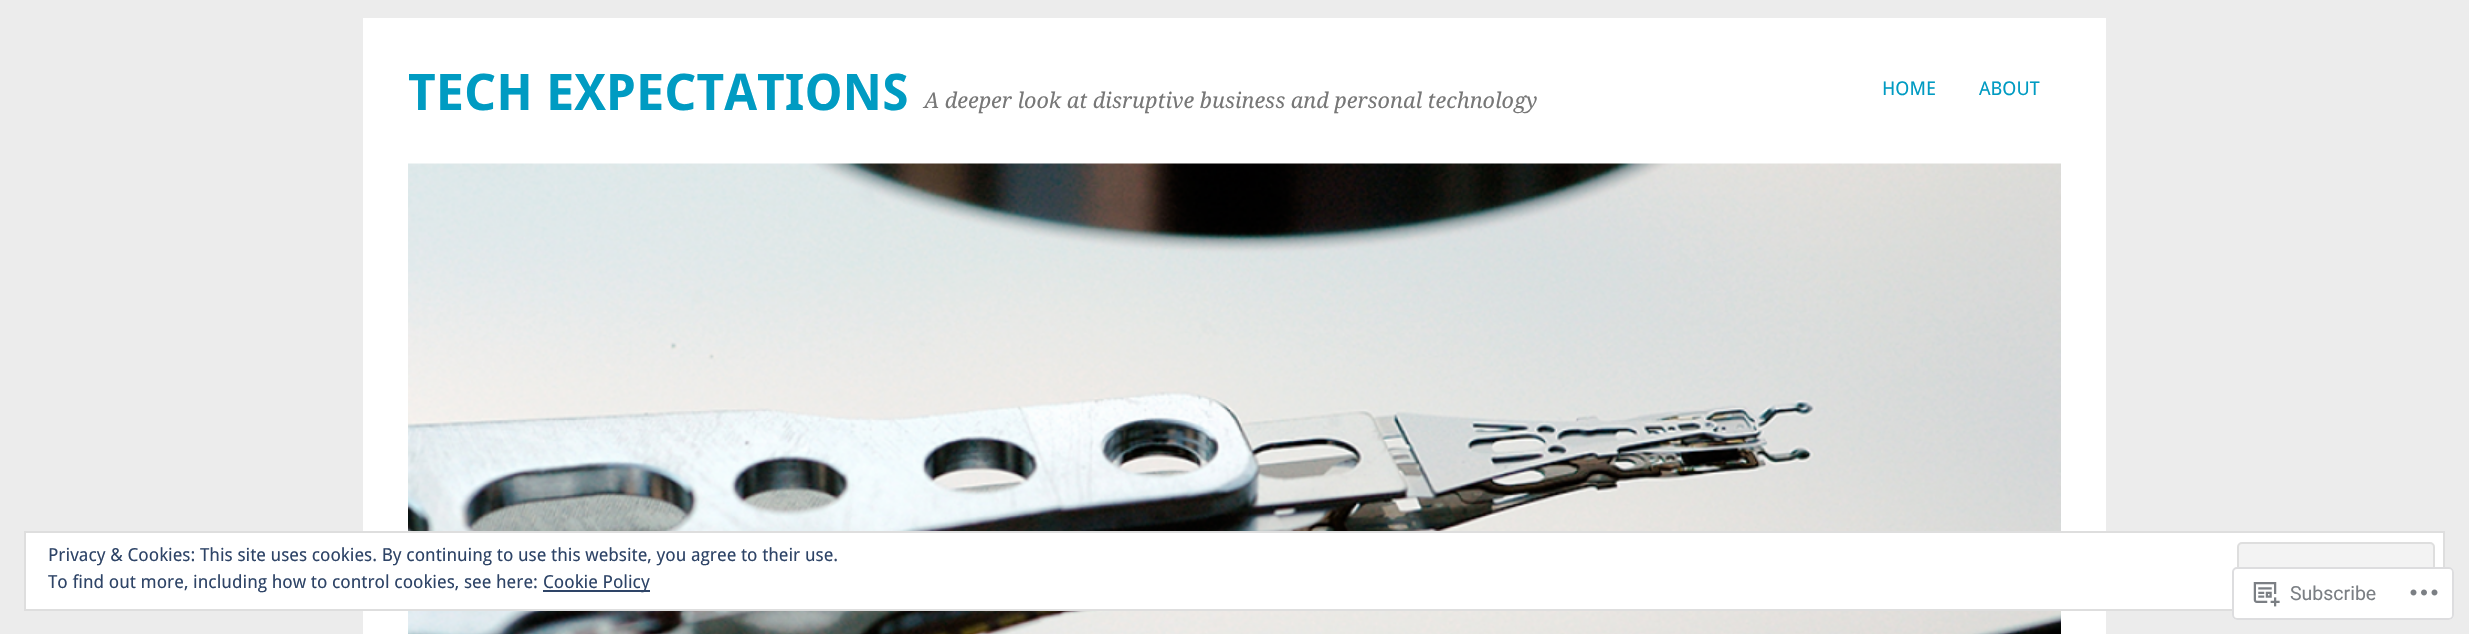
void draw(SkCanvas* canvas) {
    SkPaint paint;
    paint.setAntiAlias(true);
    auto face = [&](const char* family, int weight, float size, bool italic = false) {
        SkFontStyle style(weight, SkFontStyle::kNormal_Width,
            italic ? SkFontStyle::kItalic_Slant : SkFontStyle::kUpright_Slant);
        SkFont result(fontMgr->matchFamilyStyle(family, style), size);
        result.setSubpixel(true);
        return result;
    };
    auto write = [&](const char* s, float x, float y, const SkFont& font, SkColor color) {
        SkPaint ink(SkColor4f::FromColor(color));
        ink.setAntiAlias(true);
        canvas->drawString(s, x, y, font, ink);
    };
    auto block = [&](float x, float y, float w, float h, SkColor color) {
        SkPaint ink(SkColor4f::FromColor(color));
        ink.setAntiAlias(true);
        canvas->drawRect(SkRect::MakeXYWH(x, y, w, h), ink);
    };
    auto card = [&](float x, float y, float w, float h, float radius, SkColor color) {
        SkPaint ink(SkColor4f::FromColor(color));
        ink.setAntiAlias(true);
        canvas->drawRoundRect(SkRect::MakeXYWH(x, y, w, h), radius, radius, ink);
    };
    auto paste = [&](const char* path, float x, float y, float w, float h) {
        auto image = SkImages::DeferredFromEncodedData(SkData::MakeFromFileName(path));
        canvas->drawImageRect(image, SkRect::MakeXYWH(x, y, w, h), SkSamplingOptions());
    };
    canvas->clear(SkColorSetRGB(236, 236, 236));
    block(363, 18, 1743, 616, SK_ColorWHITE);
    auto kFont1 = face("Droid Sans", 700, 50.5f);
    write("TECH EXPECTATIONS", 408, 110, kFont1, SkColorSetRGB(0, 155, 194));
    auto kFont2 = face("Droid Serif", 400, 21.6f, true);
    write("A deeper look at disruptive business and personal technology", 924, 108, kFont2, SkColorSetRGB(119, 119, 119));
    auto kFont3 = face("Droid Sans", 400, 19);
    write("HOME", 1882, 95, kFont3, SkColorSetRGB(0, 155, 194));
    write("ABOUT", 1979, 95, kFont3, SkColorSetRGB(0, 155, 194));
    paste("pic1.png", 408, 163, 1653, 471);
    paint.setColor(SK_ColorWHITE);
    canvas->drawRect(SkRect::MakeXYWH(25, 532, 2419, 78), paint);
    paint.setStyle(SkPaint::kStroke_Style);
    paint.setStrokeWidth(2);
    paint.setColor(SkColorSetRGB(222, 222, 222));
    canvas->drawRect(SkRect::MakeXYWH(25, 532, 2419, 78), paint);
    paint.setStyle(SkPaint::kFill_Style);
    paint.setColor(SkColorSetRGB(243, 243, 243));
    canvas->drawRoundRect(SkRect::MakeXYWH(2238, 543, 196, 56), 4, 4, paint);
    paint.setStyle(SkPaint::kStroke_Style);
    paint.setColor(SkColorSetRGB(222, 222, 222));
    canvas->drawRoundRect(SkRect::MakeXYWH(2238, 543, 196, 56), 4, 4, paint);
    card(2232, 567, 222, 53, 5, SkColorSetARGB(250, 255, 255, 255));
    paint.setColor(SkColorSetARGB(250, 220, 220, 222));
    canvas->drawRoundRect(SkRect::MakeXYWH(2233, 568, 220, 51), 4, 4, paint);
    paste("pic2.png", 2253, 582, 27, 25);
    auto kFont4 = face("Roboto", 400, 19.5f);
    write("Subscribe", 2290, 600, kFont4, SkColorSetRGB(123, 127, 132));
    paste("pic3.png", 2410, 589, 28, 7);
    auto kFont5 = face("Droid Sans", 400, 18);
    write("Privacy & Cookies: This site uses cookies. By continuing to use this website, you agree to their use.", 48, 561, kFont5, SkColorSetRGB(46, 68, 103));
    write("To find out more, including how to control cookies, see here:", 48, 588, kFont5, SkColorSetRGB(46, 68, 103));
    block(543, 590, 107, 2, SkColorSetRGB(46, 68, 103));
    write("Cookie Policy", 543, 588, kFont5, SkColorSetRGB(46, 68, 103));
}
